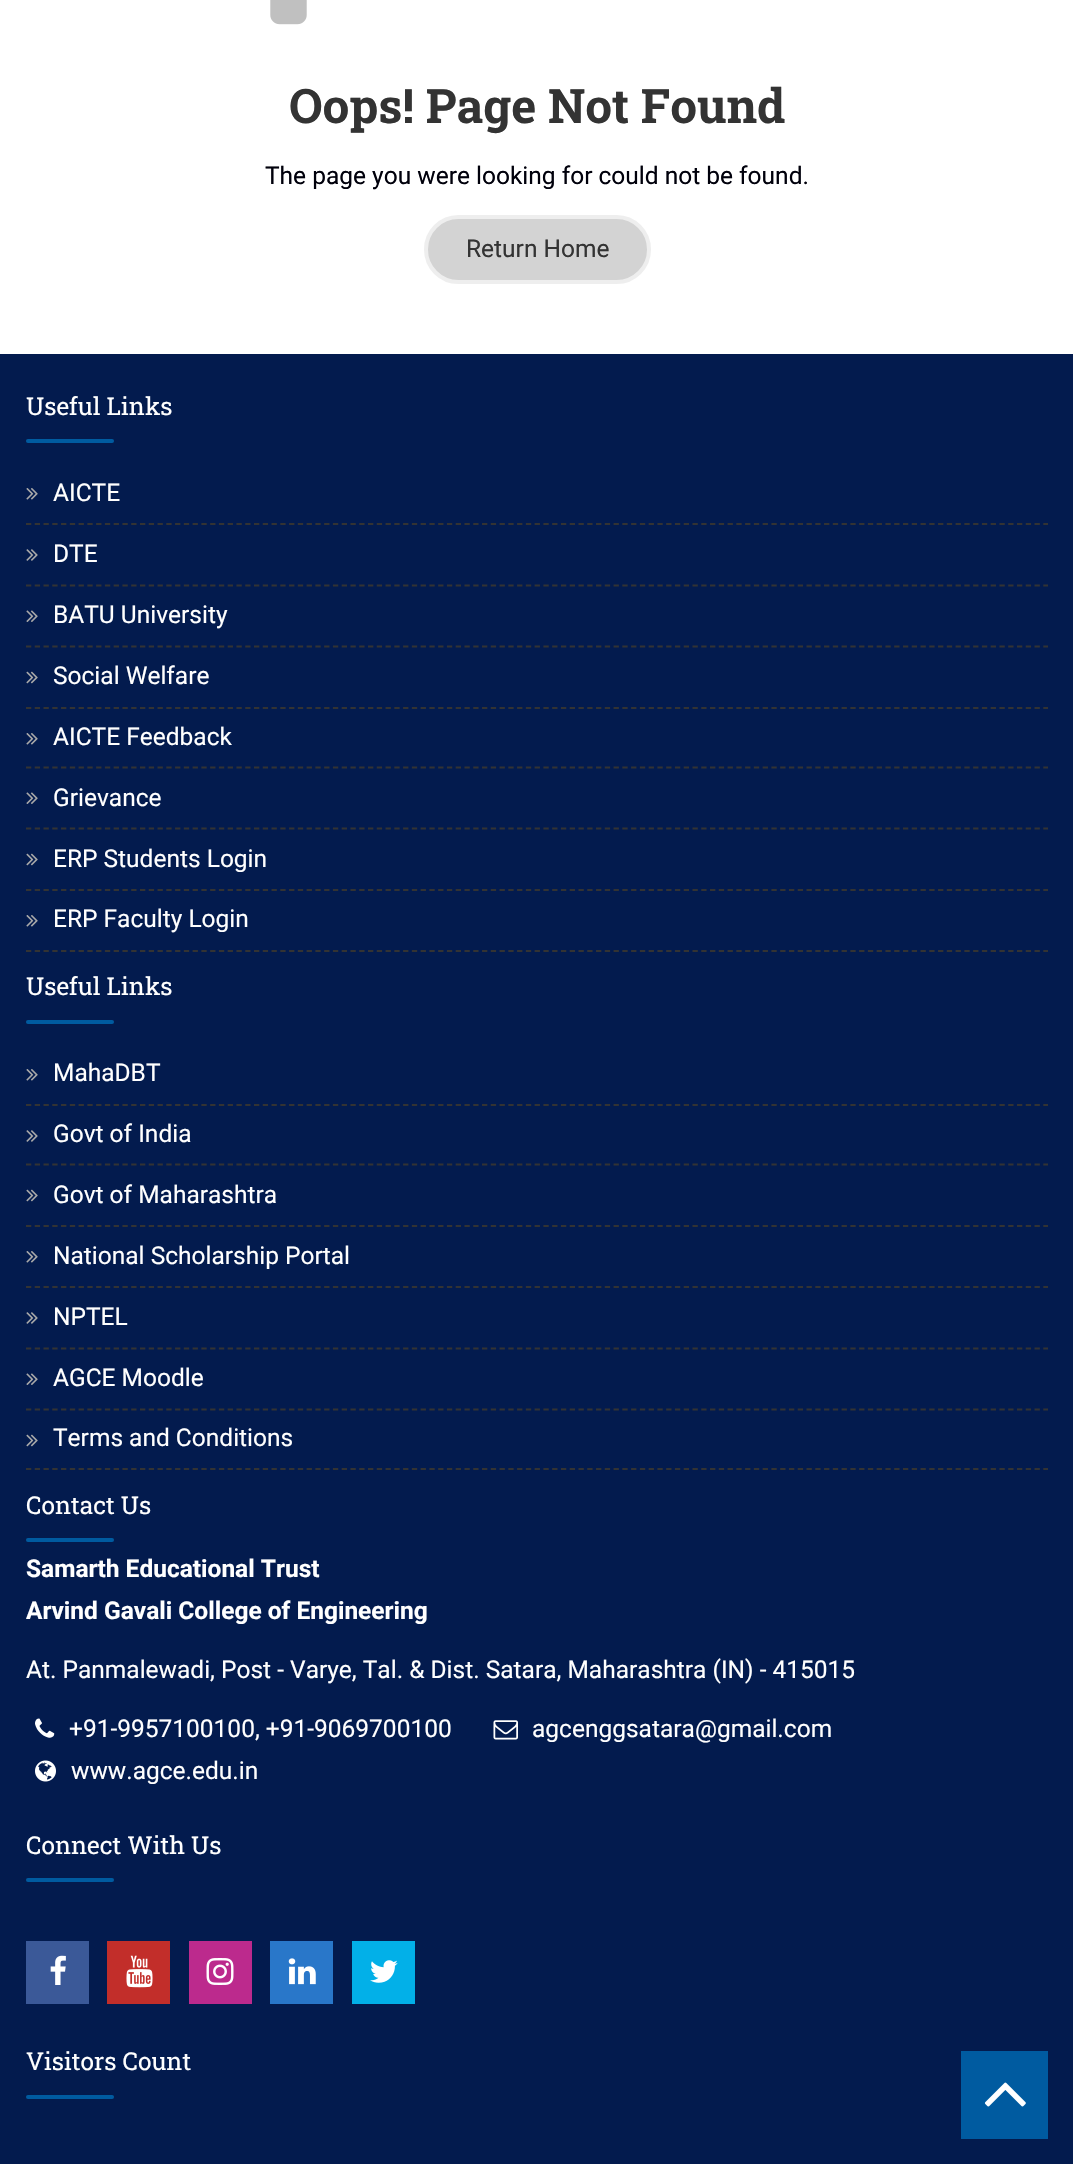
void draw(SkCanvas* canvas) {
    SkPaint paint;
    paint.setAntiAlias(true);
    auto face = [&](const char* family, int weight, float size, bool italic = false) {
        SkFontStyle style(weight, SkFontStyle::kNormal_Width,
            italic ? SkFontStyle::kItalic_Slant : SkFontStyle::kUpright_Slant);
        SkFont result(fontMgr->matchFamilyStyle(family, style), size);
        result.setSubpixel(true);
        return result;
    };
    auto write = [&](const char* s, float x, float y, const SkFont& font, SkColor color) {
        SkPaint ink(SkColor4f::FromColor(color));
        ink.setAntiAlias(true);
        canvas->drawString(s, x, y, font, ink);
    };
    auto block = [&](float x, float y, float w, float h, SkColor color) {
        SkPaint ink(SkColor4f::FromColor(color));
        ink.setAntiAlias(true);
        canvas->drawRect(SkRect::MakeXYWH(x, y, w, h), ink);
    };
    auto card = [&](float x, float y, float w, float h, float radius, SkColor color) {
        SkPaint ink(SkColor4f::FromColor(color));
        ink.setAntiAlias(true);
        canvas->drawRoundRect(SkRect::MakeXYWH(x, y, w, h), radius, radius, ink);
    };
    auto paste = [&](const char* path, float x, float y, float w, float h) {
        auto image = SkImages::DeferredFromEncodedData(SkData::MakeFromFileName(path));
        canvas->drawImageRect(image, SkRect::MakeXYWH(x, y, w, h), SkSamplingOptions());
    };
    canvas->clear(SK_ColorWHITE);
    paste("pic1.png", 270, 0, 37, 25);
    auto kFont1 = face("Roboto Slab", 700, 47.6f);
    write("Oops! Page Not Found", 289, 123, kFont1, SkColorSetRGB(51, 51, 51));
    auto kFont2 = face("Roboto", 400, 24.5f);
    write("The page you were looking for could not be found.", 265, 184, kFont2, SkColorSetRGB(0, 0, 11));
    paint.setColor(SkColorSetRGB(211, 211, 211));
    canvas->drawRoundRect(SkRect::MakeXYWH(426, 217, 223, 65), 32.5f, 32.5f, paint);
    paint.setStyle(SkPaint::kStroke_Style);
    paint.setStrokeWidth(4);
    paint.setColor(SkColorSetRGB(238, 238, 238));
    canvas->drawRoundRect(SkRect::MakeXYWH(426, 217, 223, 65), 32.5f, 32.5f, paint);
    write("Return Home", 466, 257, kFont2, SkColorSetRGB(51, 51, 51));
    block(0, 354, 1073, 1810, SkColorSetRGB(3, 27, 78));
    auto kFont3 = face("Roboto Slab", 400, 24.5f);
    write("Useful Links", 26, 415, kFont3, SK_ColorWHITE);
    card(26, 439, 88, 4, 2, SkColorSetRGB(0, 91, 160));
    paint.setStrokeWidth(1.8f);
    paint.setColor(SkColorSetRGB(51, 51, 51));
    paint.setPathEffect(SkDashPathEffect::Make({{5.25f, 3.52f}}, 0));
    canvas->drawPath(SkPathBuilder().moveTo(26, 524).lineTo(1048, 524).detach(), paint);
    paint.setPathEffect(nullptr);
    paste("pic2.png", 26, 488, 12, 12);
    write("AICTE", 53, 501, kFont2, SK_ColorWHITE);
    paint.setPathEffect(SkDashPathEffect::Make({{5.25f, 3.52f}}, 0));
    canvas->drawPath(SkPathBuilder().moveTo(26, 585.5f).lineTo(1048, 585.5f).detach(), paint);
    paint.setPathEffect(nullptr);
    paste("pic3.png", 26, 549, 12, 12);
    write("DTE", 53, 562, kFont2, SK_ColorWHITE);
    paint.setPathEffect(SkDashPathEffect::Make({{5.25f, 3.52f}}, 0));
    canvas->drawPath(SkPathBuilder().moveTo(26, 646.5f).lineTo(1048, 646.5f).detach(), paint);
    paint.setPathEffect(nullptr);
    paste("pic4.png", 26, 610, 12, 12);
    write("BATU University", 53, 623, kFont2, SK_ColorWHITE);
    paint.setPathEffect(SkDashPathEffect::Make({{5.25f, 3.52f}}, 0));
    canvas->drawPath(SkPathBuilder().moveTo(26, 708).lineTo(1048, 708).detach(), paint);
    paint.setPathEffect(nullptr);
    paste("pic5.png", 26, 671, 12, 13);
    write("Social Welfare", 53, 684, kFont2, SK_ColorWHITE);
    paint.setPathEffect(SkDashPathEffect::Make({{5.25f, 3.52f}}, 0));
    canvas->drawPath(SkPathBuilder().moveTo(26, 767.5f).lineTo(1048, 767.5f).detach(), paint);
    paint.setPathEffect(nullptr);
    paste("pic2.png", 26, 733, 12, 12);
    write("AICTE Feedback", 53, 745, kFont2, SK_ColorWHITE);
    paint.setPathEffect(SkDashPathEffect::Make({{5.25f, 3.52f}}, 0));
    canvas->drawPath(SkPathBuilder().moveTo(26, 828.5f).lineTo(1048, 828.5f).detach(), paint);
    paint.setPathEffect(nullptr);
    paste("pic4.png", 26, 792, 12, 12);
    write("Grievance", 53, 806, kFont2, SK_ColorWHITE);
    paint.setPathEffect(SkDashPathEffect::Make({{5.25f, 3.52f}}, 0));
    canvas->drawPath(SkPathBuilder().moveTo(26, 890).lineTo(1048, 890).detach(), paint);
    paint.setPathEffect(nullptr);
    paste("pic5.png", 26, 853, 12, 13);
    write("ERP Students Login", 53, 867, kFont2, SK_ColorWHITE);
    paint.setPathEffect(SkDashPathEffect::Make({{5.25f, 3.52f}}, 0));
    canvas->drawPath(SkPathBuilder().moveTo(26, 951).lineTo(1048, 951).detach(), paint);
    paint.setPathEffect(nullptr);
    paste("pic2.png", 26, 915, 12, 12);
    write("ERP Faculty Login", 53, 927, kFont2, SK_ColorWHITE);
    write("Useful Links", 26, 995, kFont3, SK_ColorWHITE);
    card(26, 1020, 88, 4, 2, SkColorSetRGB(0, 91, 160));
    paint.setPathEffect(SkDashPathEffect::Make({{5.25f, 3.52f}}, 0));
    canvas->drawPath(SkPathBuilder().moveTo(26, 1105).lineTo(1048, 1105).detach(), paint);
    paint.setPathEffect(nullptr);
    paste("pic2.png", 26, 1069, 12, 12);
    write("MahaDBT", 53, 1081, kFont2, SK_ColorWHITE);
    paint.setPathEffect(SkDashPathEffect::Make({{5.25f, 3.52f}}, 0));
    canvas->drawPath(SkPathBuilder().moveTo(26, 1164.5f).lineTo(1048, 1164.5f).detach(), paint);
    paint.setPathEffect(nullptr);
    paste("pic3.png", 26, 1130, 12, 12);
    write("Govt of India", 53, 1142, kFont2, SK_ColorWHITE);
    paint.setPathEffect(SkDashPathEffect::Make({{5.25f, 3.52f}}, 0));
    canvas->drawPath(SkPathBuilder().moveTo(26, 1226).lineTo(1048, 1226).detach(), paint);
    paint.setPathEffect(nullptr);
    paste("pic5.png", 26, 1189, 12, 13);
    write("Govt of Maharashtra", 53, 1203, kFont2, SK_ColorWHITE);
    paint.setPathEffect(SkDashPathEffect::Make({{5.25f, 3.52f}}, 0));
    canvas->drawPath(SkPathBuilder().moveTo(26, 1287).lineTo(1048, 1287).detach(), paint);
    paint.setPathEffect(nullptr);
    paste("pic2.png", 26, 1251, 12, 12);
    write("National Scholarship Portal", 53, 1264, kFont2, SK_ColorWHITE);
    paint.setPathEffect(SkDashPathEffect::Make({{5.25f, 3.52f}}, 0));
    canvas->drawPath(SkPathBuilder().moveTo(26, 1348.5f).lineTo(1048, 1348.5f).detach(), paint);
    paint.setPathEffect(nullptr);
    paste("pic3.png", 26, 1312, 12, 12);
    write("NPTEL", 53, 1325, kFont2, SK_ColorWHITE);
    paint.setPathEffect(SkDashPathEffect::Make({{5.25f, 3.52f}}, 0));
    canvas->drawPath(SkPathBuilder().moveTo(26, 1409.5f).lineTo(1048, 1409.5f).detach(), paint);
    paint.setPathEffect(nullptr);
    paste("pic4.png", 26, 1373, 12, 12);
    write("AGCE Moodle", 53, 1386, kFont2, SK_ColorWHITE);
    paint.setPathEffect(SkDashPathEffect::Make({{5.25f, 3.52f}}, 0));
    canvas->drawPath(SkPathBuilder().moveTo(26, 1469).lineTo(1048, 1469).detach(), paint);
    paint.setPathEffect(nullptr);
    paste("pic5.png", 26, 1434, 12, 13);
    write("Terms and Conditions", 53, 1446, kFont2, SK_ColorWHITE);
    write("Contact Us", 26, 1514, kFont3, SK_ColorWHITE);
    card(26, 1538, 88, 4, 2, SkColorSetRGB(0, 91, 160));
    auto kFont4 = face("Roboto", 700, 24.5f);
    write("Samarth Educational Trust", 26, 1577, kFont4, SK_ColorWHITE);
    write("Arvind Gavali College of Engineering", 26, 1619, kFont4, SK_ColorWHITE);
    write("At. Panmalewadi, Post - Varye, Tal. & Dist. Satara, Maharashtra (IN) - 415015", 26, 1678, kFont2, SK_ColorWHITE);
    paste("pic6.png", 35, 1718, 20, 20);
    write("+91-9957100100, +91-9069700100", 69, 1737, kFont2, SK_ColorWHITE);
    paste("pic7.png", 493, 1720, 25, 20);
    write("agcenggsatara@gmail.com", 532, 1737, kFont2, SK_ColorWHITE);
    paste("pic8.png", 35, 1760, 21, 22);
    write("www.agce.edu.in", 71, 1779, kFont2, SK_ColorWHITE);
    write("Connect With Us", 26, 1854, kFont3, SK_ColorWHITE);
    card(26, 1878, 88, 4, 2, SkColorSetRGB(0, 91, 160));
    block(26, 1941, 63, 63, SkColorSetRGB(59, 89, 152));
    paste("pic9.png", 50, 1955, 16, 30);
    block(107, 1941, 63, 63, SkColorSetRGB(194, 46, 42));
    paste("pic10.png", 126, 1955, 27, 33);
    block(189, 1941, 63, 63, SkColorSetRGB(188, 42, 141));
    paste("pic11.png", 206, 1958, 28, 27);
    block(270, 1941, 63, 63, SkColorSetRGB(41, 119, 201));
    paste("pic12.png", 288, 1958, 28, 27);
    block(352, 1941, 63, 63, SkColorSetRGB(2, 176, 232));
    paste("pic13.png", 370, 1960, 28, 23);
    write("Visitors Count", 26, 2070, kFont3, SK_ColorWHITE);
    card(26, 2095, 88, 4, 2, SkColorSetRGB(0, 91, 160));
    block(961, 2051, 87, 88, SkColorSetRGB(0, 91, 160));
    paste("pic14.png", 984, 2082, 42, 25);
}
